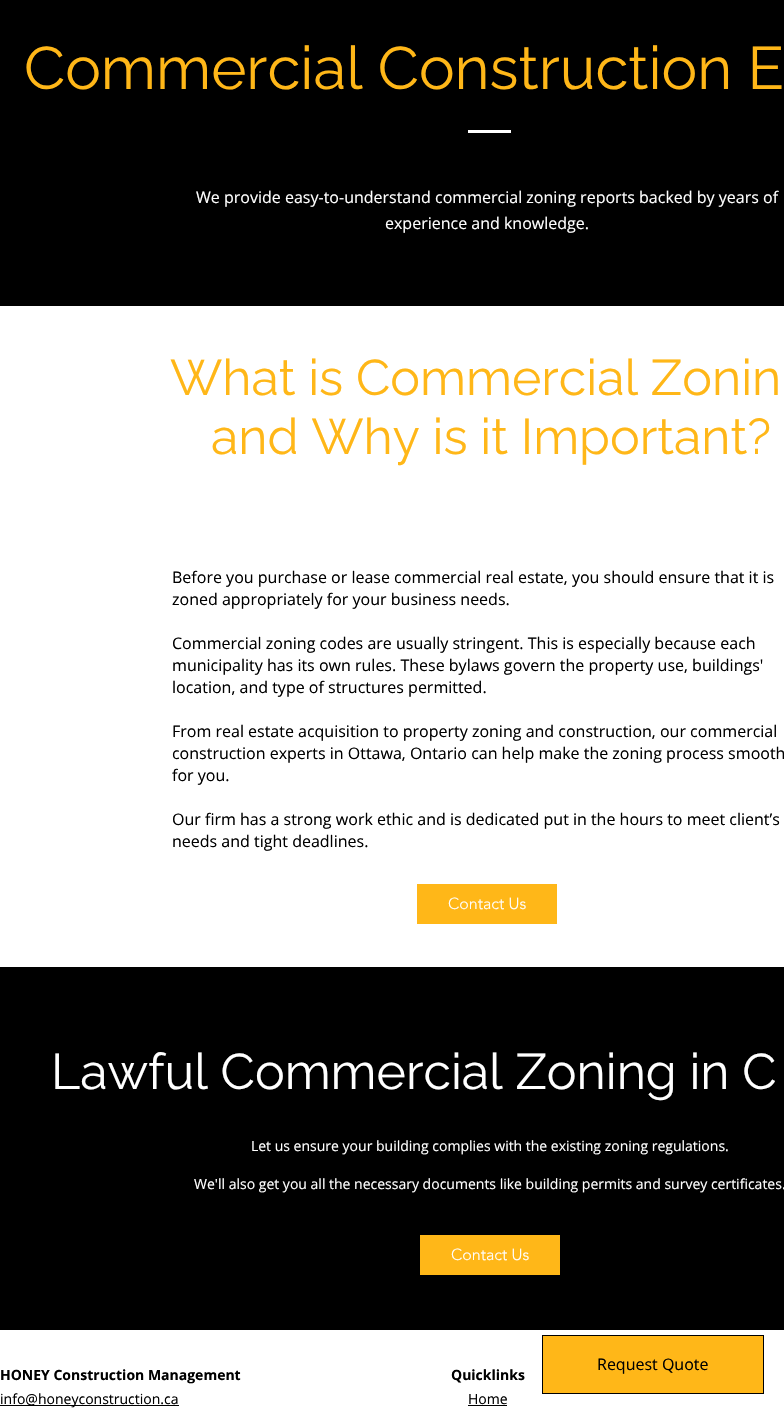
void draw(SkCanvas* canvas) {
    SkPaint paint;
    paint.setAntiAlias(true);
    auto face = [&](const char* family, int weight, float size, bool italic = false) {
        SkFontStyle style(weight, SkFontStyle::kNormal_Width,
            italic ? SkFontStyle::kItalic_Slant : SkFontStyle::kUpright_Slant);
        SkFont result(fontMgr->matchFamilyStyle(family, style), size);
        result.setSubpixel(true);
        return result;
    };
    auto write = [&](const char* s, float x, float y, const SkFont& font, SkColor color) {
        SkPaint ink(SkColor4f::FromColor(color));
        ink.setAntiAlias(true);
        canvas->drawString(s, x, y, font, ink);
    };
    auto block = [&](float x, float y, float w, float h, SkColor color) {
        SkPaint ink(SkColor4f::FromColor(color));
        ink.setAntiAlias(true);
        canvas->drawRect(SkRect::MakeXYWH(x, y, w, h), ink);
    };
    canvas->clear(SK_ColorWHITE);
    block(0, 0, 784, 306, SK_ColorBLACK);
    auto kFont1 = face("Raleway", 400, 60);
    write("Commercial Construction E", 24, 89, kFont1, SkColorSetRGB(255, 183, 24));
    block(468, 130, 43, 3, SK_ColorWHITE);
    auto kFont2 = face("Open Sans", 400, 16);
    write("We provide easy-to-understand commercial zoning reports backed by years of", 196, 203, kFont2, SK_ColorWHITE);
    write("experience and knowledge.", 385, 229, kFont2, SK_ColorWHITE);
    auto kFont3 = face("Raleway", 400, 50);
    write("What is Commercial Zonin", 170, 395, kFont3, SkColorSetRGB(255, 183, 24));
    write("and Why is it Important?", 211, 454, kFont3, SkColorSetRGB(255, 183, 24));
    write("Before you purchase or lease commercial real estate, you should ensure that it is", 172, 583, kFont2, SK_ColorBLACK);
    write("zoned appropriately for your business needs.", 172, 605, kFont2, SK_ColorBLACK);
    write("Commercial zoning codes are usually stringent. This is especially because each", 172, 649, kFont2, SK_ColorBLACK);
    write("municipality has its own rules. These bylaws govern the property use, buildings'", 172, 671, kFont2, SK_ColorBLACK);
    write("location, and type of structures permitted.", 172, 693, kFont2, SK_ColorBLACK);
    write("From real estate acquisition to property zoning and construction, our commercial", 172, 737, kFont2, SK_ColorBLACK);
    write("construction experts in Ottawa, Ontario can help make the zoning process smooth", 172, 759, kFont2, SK_ColorBLACK);
    write("for you.", 172, 781, kFont2, SK_ColorBLACK);
    write("Our firm has a strong work ethic and is dedicated put in the hours to meet client’s", 172, 825, kFont2, SK_ColorBLACK);
    write("needs and tight deadlines.", 172, 847, kFont2, SK_ColorBLACK);
    block(417, 884, 140, 40, SkColorSetRGB(255, 183, 24));
    auto kFont4 = face("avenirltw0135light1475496", 300, 16);
    write("Contact Us", 448, 909, kFont4, SK_ColorWHITE);
    block(0, 967, 784, 363, SK_ColorBLACK);
    write("Lawful Commercial Zoning in C", 51, 1089, kFont3, SK_ColorWHITE);
    auto kFont5 = face("Open Sans", 400, 14);
    write("Let us ensure your building complies with the existing zoning regulations.", 251, 1151, kFont5, SK_ColorWHITE);
    write("We'll also get you all the necessary documents like building permits and survey certificates.", 194, 1189, kFont5, SK_ColorWHITE);
    block(420, 1235, 140, 40, SkColorSetRGB(255, 183, 24));
    write("Contact Us", 451, 1260, kFont4, SK_ColorWHITE);
    paint.setColor(SkColorSetRGB(255, 183, 24));
    canvas->drawRect(SkRect::MakeXYWH(542.5f, 1335.5f, 221, 58), paint);
    paint.setStyle(SkPaint::kStroke_Style);
    paint.setStrokeWidth(1);
    paint.setColor(SK_ColorBLACK);
    canvas->drawRect(SkRect::MakeXYWH(542.5f, 1335.5f, 221, 58), paint);
    write("Request Quote", 597, 1370, kFont2, SK_ColorBLACK);
    auto kFont6 = face("Open Sans", 700, 14);
    write("HONEY Construction Management", 0, 1380, kFont6, SK_ColorBLACK);
    block(0, 1405, 179, 1, SK_ColorBLACK);
    write("info@honeyconstruction.ca", 0, 1404, kFont5, SK_ColorBLACK);
    write("Quicklinks", 451, 1380, kFont6, SK_ColorBLACK);
    write("Home", 468, 1404, kFont5, SK_ColorBLACK);
    block(468, 1405, 39, 1, SK_ColorBLACK);
}
